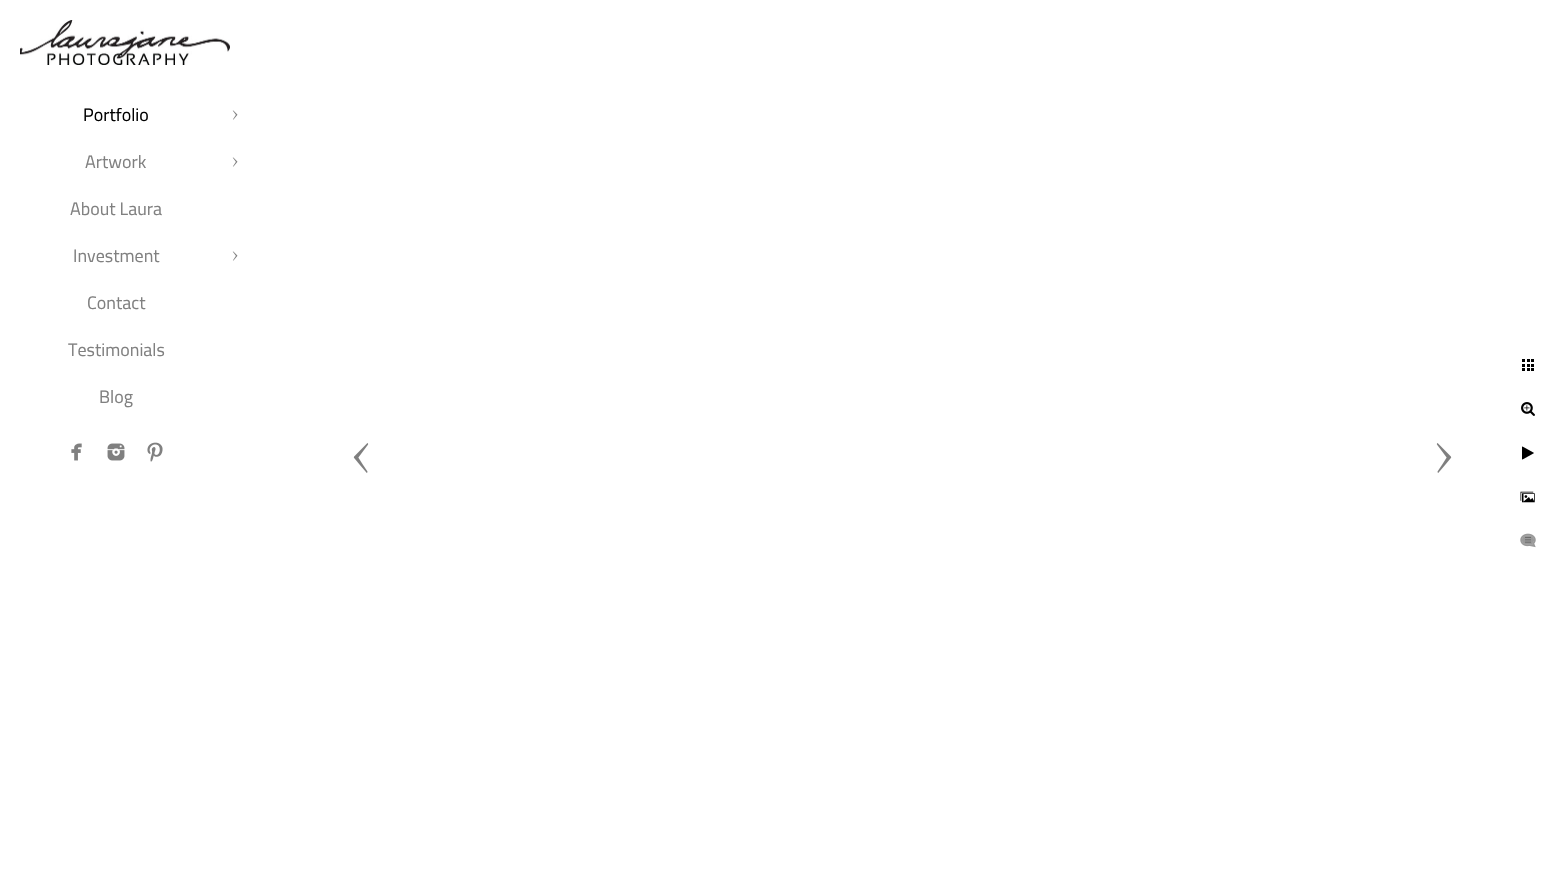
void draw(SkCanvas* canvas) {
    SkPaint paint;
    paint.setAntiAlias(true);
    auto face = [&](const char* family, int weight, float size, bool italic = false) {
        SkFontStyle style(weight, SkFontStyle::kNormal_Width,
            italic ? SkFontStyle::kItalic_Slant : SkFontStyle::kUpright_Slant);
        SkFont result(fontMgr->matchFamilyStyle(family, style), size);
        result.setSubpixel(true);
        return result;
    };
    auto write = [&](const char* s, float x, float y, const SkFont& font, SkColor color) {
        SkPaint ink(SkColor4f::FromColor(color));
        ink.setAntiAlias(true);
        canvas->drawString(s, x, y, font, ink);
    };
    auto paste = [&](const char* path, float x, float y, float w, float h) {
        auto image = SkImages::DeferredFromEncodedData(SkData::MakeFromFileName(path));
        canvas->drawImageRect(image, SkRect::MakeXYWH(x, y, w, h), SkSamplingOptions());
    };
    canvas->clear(SK_ColorWHITE);
    paste("pic1.png", 20, 20, 210, 45);
    auto kFont1 = face("Titillium Web", 400, 18);
    write("Portfolio", 83, 121, kFont1, SK_ColorBLACK);
    paste("pic2.png", 232, 110, 6, 10);
    write("Artwork", 85, 168, kFont1, SkColorSetRGB(128, 128, 128));
    paste("pic2.png", 232, 157, 6, 10);
    write("About Laura", 70, 215, kFont1, SkColorSetRGB(128, 128, 128));
    write("Investment", 73, 262, kFont1, SkColorSetRGB(128, 128, 128));
    paste("pic2.png", 232, 251, 6, 10);
    write("Contact", 87, 309, kFont1, SkColorSetRGB(128, 128, 128));
    write("Testimonials", 68, 356, kFont1, SkColorSetRGB(128, 128, 128));
    write("Blog", 99, 403, kFont1, SkColorSetRGB(128, 128, 128));
    paste("pic3.png", 71, 443, 11, 18);
    paste("pic4.png", 107, 443, 18, 18);
    paste("pic5.png", 147, 442, 16, 20);
    paste("pic6.png", 353, 443, 16, 30);
    paste("pic7.png", 1436, 443, 16, 30);
    paste("pic8.png", 1522, 359, 12, 12);
    paste("pic9.png", 1521, 402, 14, 14);
    paste("pic10.png", 1522, 446, 12, 14);
    paste("pic11.png", 1520, 491, 15, 12);
    paste("pic12.png", 1520, 533, 16, 15);
}
